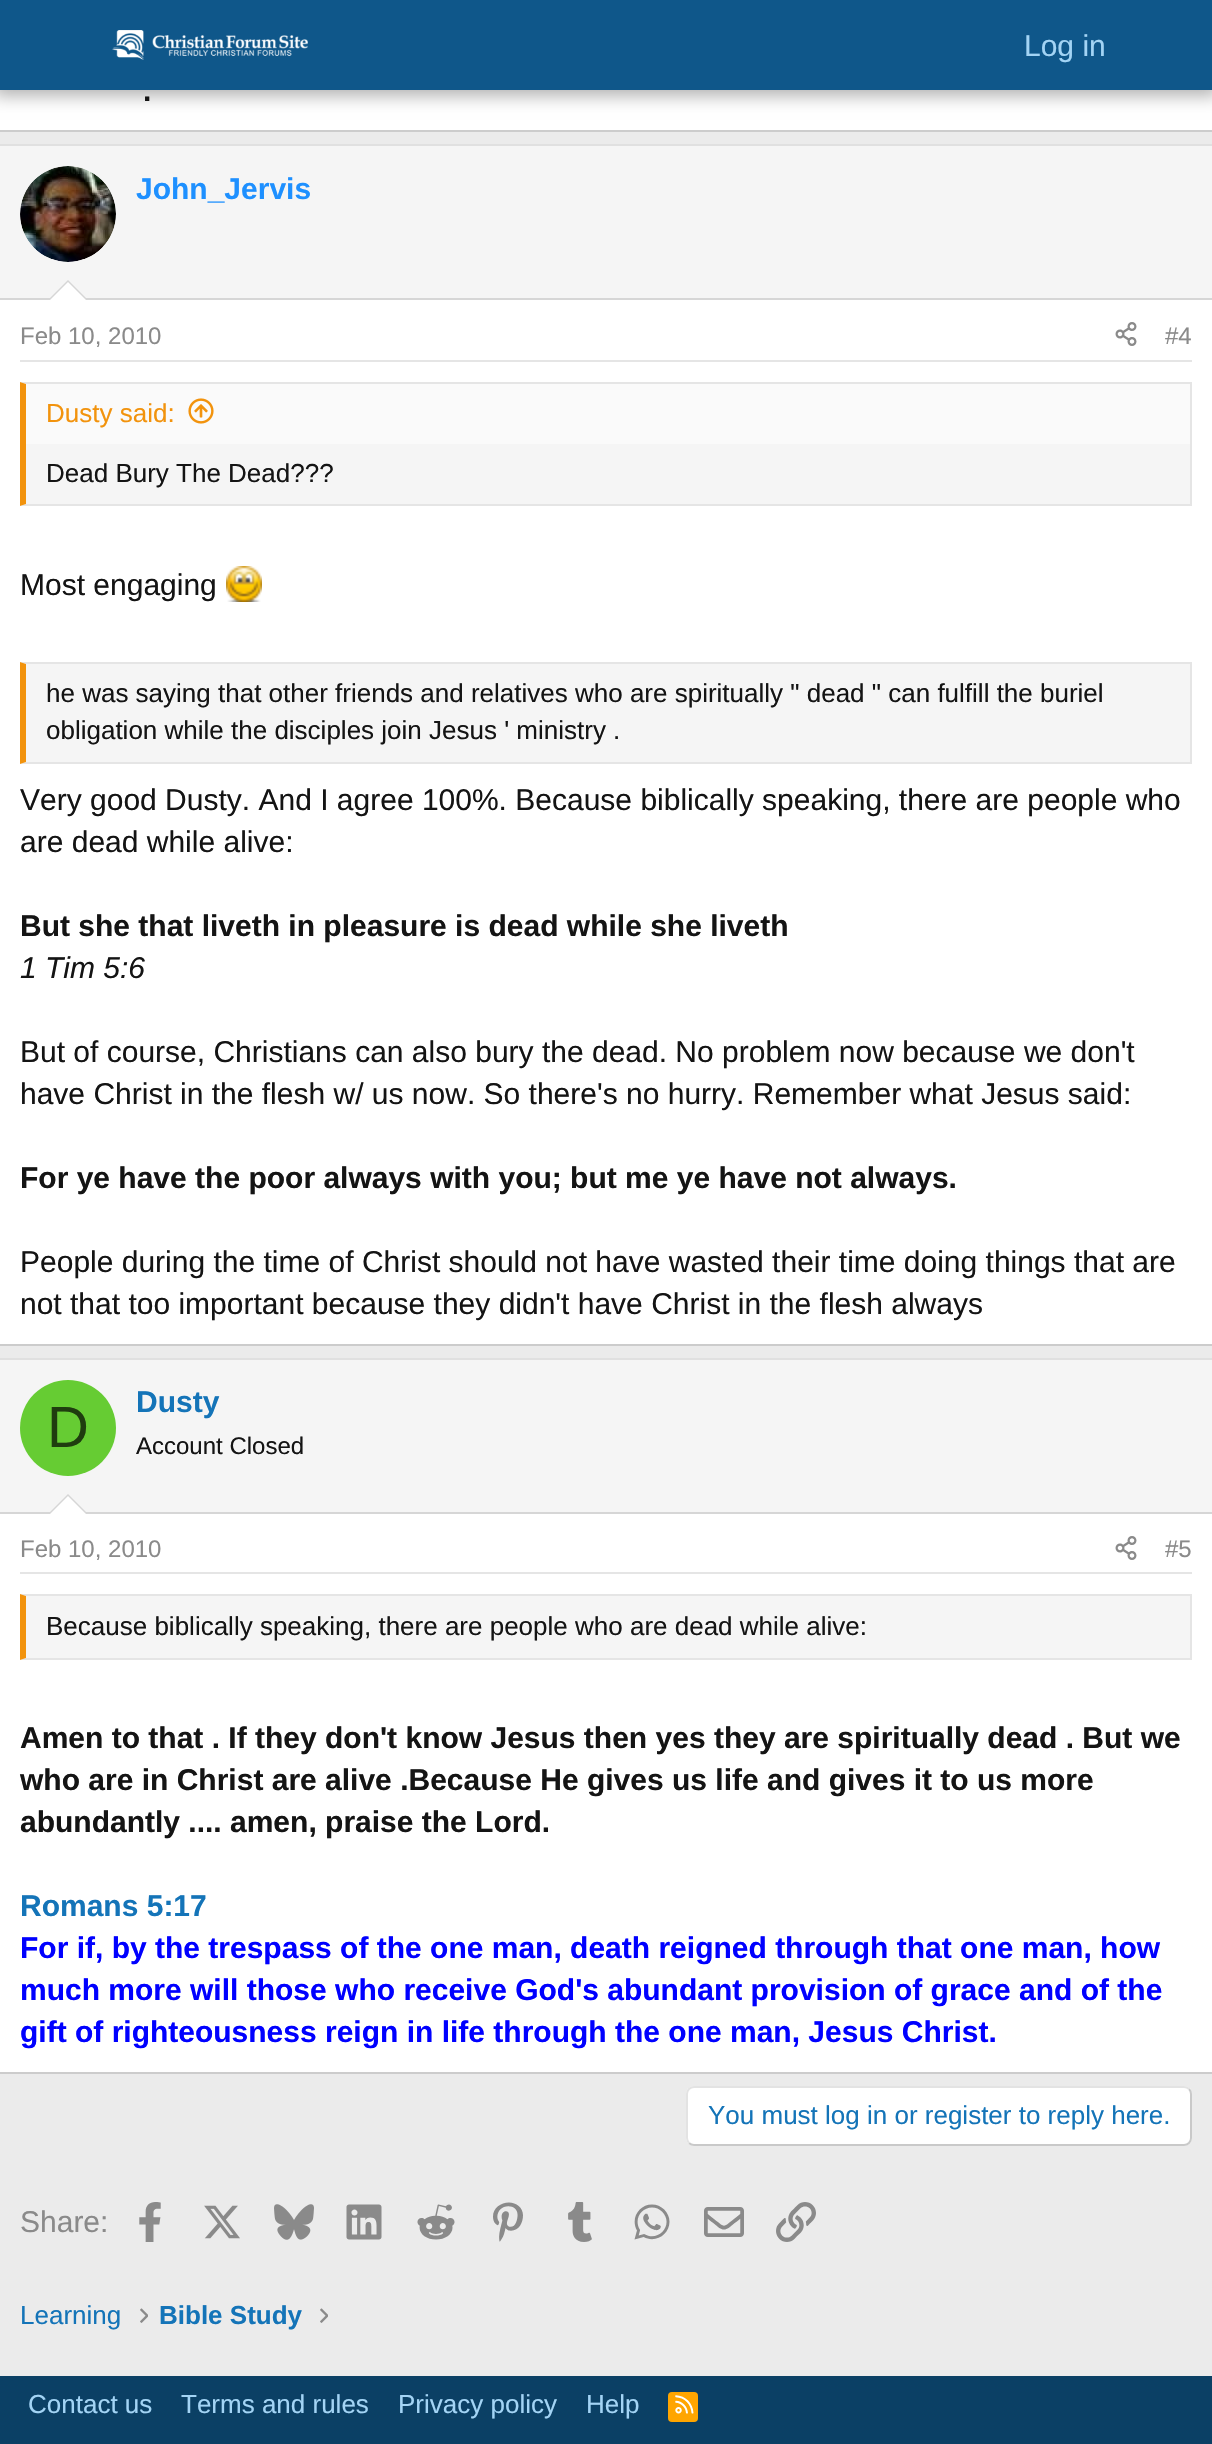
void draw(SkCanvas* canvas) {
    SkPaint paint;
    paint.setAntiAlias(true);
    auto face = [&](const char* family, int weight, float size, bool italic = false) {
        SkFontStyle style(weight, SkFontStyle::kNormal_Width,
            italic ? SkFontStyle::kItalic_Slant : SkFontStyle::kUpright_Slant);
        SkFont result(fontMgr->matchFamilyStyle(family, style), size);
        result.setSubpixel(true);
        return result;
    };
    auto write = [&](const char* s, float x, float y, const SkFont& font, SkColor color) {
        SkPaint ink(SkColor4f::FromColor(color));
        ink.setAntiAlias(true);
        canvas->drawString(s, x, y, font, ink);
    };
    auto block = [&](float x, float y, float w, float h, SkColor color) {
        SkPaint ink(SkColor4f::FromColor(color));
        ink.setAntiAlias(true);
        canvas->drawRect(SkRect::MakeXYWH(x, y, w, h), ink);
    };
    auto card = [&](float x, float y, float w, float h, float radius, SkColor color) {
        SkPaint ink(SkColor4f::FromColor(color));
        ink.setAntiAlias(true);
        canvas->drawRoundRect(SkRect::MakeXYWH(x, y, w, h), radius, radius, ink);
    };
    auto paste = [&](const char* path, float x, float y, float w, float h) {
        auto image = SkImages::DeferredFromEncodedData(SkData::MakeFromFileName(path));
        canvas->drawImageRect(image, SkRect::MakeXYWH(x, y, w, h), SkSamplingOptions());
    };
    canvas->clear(SkColorSetRGB(235, 235, 235));
    block(0, 90, 1212, 40, SK_ColorWHITE);
    paint.setColor(SkColorSetARGB(77, 0, 0, 0));
    paint.setMaskFilter(SkMaskFilter::MakeBlur(kNormal_SkBlurStyle, 8));
    canvas->drawRect(SkRect::MakeXYWH(-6, -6, 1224, 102), paint);
    paint.setMaskFilter(nullptr);
    block(0, 0, 1212, 90, SkColorSetRGB(15, 87, 138));
    paste("pic1.png", 112, 30, 196, 30);
    auto kFont1 = face("Liberation Sans", 400, 30);
    write("Log in", 1024, 56, kFont1, SkColorSetRGB(163, 212, 245));
    block(0, 130, 1212, 2, SkColorSetRGB(204, 204, 204));
    auto kFont2 = face("Liberation Sans", 700, 30);
    write(".", 143, 101, kFont2, SkColorSetRGB(20, 20, 20));
    block(0, 300, 1212, 1044, SK_ColorWHITE);
    block(0, 144, 1212, 2, SkColorSetRGB(224, 224, 224));
    block(0, 1344, 1212, 2, SkColorSetRGB(204, 204, 204));
    block(0, 146, 1212, 152, SkColorSetRGB(245, 245, 245));
    block(0, 298, 1212, 2, SkColorSetRGB(214, 214, 214));
    paint.setColor(SK_ColorWHITE);
    canvas->drawCircle(68, 214, 48, paint);
    paste("pic2.png", 20, 166, 96, 96);
    write("John_Jervis", 136, 199, kFont2, SkColorSetRGB(30, 144, 255));
    paint.setColor(SkColorSetRGB(214, 214, 214));
    canvas->drawPath(SkPathBuilder().moveTo(88, 300).lineTo(48, 300).lineTo(68, 280).close().detach(), paint);
    paint.setColor(SK_ColorWHITE);
    canvas->drawPath(SkPathBuilder().moveTo(86, 300).lineTo(50, 300).lineTo(68, 282).close().detach(), paint);
    block(20, 360, 1172, 2, SkColorSetRGB(229, 229, 229));
    auto kFont3 = face("Liberation Sans", 400, 24);
    write("Feb 10, 2010", 20, 344, kFont3, SkColorSetRGB(138, 138, 138));
    paste("pic3.png", 1115, 322, 22, 24);
    write("#4", 1165, 344, kFont3, SkColorSetRGB(138, 138, 138));
    block(26, 444, 1164, 60, SkColorSetRGB(245, 245, 245));
    paint.setColor(SkColorSetRGB(229, 229, 229));
    canvas->drawPath(SkPathBuilder().moveTo(20, 382).lineTo(1192, 382).lineTo(1190, 384).lineTo(26, 384).close().detach(), paint);
    block(1190, 382, 2, 124, SkColorSetRGB(229, 229, 229));
    canvas->drawPath(SkPathBuilder().moveTo(1192, 506).lineTo(20, 506).lineTo(26, 504).lineTo(1190, 504).close().detach(), paint);
    paint.setColor(SkColorSetRGB(242, 147, 13));
    canvas->drawPath(SkPathBuilder().moveTo(20, 506).lineTo(20, 382).lineTo(26, 384).lineTo(26, 504).close().detach(), paint);
    block(26, 384, 1164, 60, SkColorSetRGB(250, 250, 250));
    auto kFont4 = face("Liberation Sans", 400, 26);
    write("Dusty said:", 46, 422, kFont4, SkColorSetRGB(242, 147, 13));
    paste("pic4.png", 188, 398, 26, 26);
    write("Dead Bury The Dead?\077?", 46, 482, kFont4, SkColorSetRGB(20, 20, 20));
    write("Most engaging", 20, 595, kFont1, SkColorSetRGB(20, 20, 20));
    paste("pic5.png", 226, 566, 36, 36);
    block(26, 664, 1164, 98, SkColorSetRGB(245, 245, 245));
    paint.setColor(SkColorSetRGB(229, 229, 229));
    canvas->drawPath(SkPathBuilder().moveTo(20, 662).lineTo(1192, 662).lineTo(1190, 664).lineTo(26, 664).close().detach(), paint);
    block(1190, 662, 2, 102, SkColorSetRGB(229, 229, 229));
    canvas->drawPath(SkPathBuilder().moveTo(1192, 764).lineTo(20, 764).lineTo(26, 762).lineTo(1190, 762).close().detach(), paint);
    paint.setColor(SkColorSetRGB(242, 147, 13));
    canvas->drawPath(SkPathBuilder().moveTo(20, 764).lineTo(20, 662).lineTo(26, 664).lineTo(26, 762).close().detach(), paint);
    write("he was saying that other friends and relatives who are spiritually \" dead \" can fulfill the buriel", 46, 702, kFont4, SkColorSetRGB(20, 20, 20));
    write("obligation while the disciples join Jesus ' ministry .", 46, 739, kFont4, SkColorSetRGB(20, 20, 20));
    write("Very good Dusty. And I agree 100%. Because biblically speaking, there are people who", 20, 810, kFont1, SkColorSetRGB(20, 20, 20));
    write("are dead while alive:", 20, 852, kFont1, SkColorSetRGB(20, 20, 20));
    write("But she that liveth in pleasure is dead while she liveth", 20, 936, kFont2, SkColorSetRGB(20, 20, 20));
    auto kFont5 = face("Liberation Sans", 400, 30, true);
    write("1 Tim 5:6", 20, 978, kFont5, SkColorSetRGB(20, 20, 20));
    write("But of course, Christians can also bury the dead. No problem now because we don't", 20, 1062, kFont1, SkColorSetRGB(20, 20, 20));
    write("have Christ in the flesh w/ us now. So there's no hurry. Remember what Jesus said:", 20, 1104, kFont1, SkColorSetRGB(20, 20, 20));
    write("For ye have the poor always with you; but me ye have not always.", 20, 1188, kFont2, SkColorSetRGB(20, 20, 20));
    write("People during the time of Christ should not have wasted their time doing things that are", 20, 1272, kFont1, SkColorSetRGB(20, 20, 20));
    write("not that too important because they didn't have Christ in the flesh always", 20, 1314, kFont1, SkColorSetRGB(20, 20, 20));
    block(0, 1514, 1212, 558, SK_ColorWHITE);
    block(0, 1358, 1212, 2, SkColorSetRGB(224, 224, 224));
    block(0, 2072, 1212, 2, SkColorSetRGB(204, 204, 204));
    block(0, 1360, 1212, 152, SkColorSetRGB(245, 245, 245));
    block(0, 1512, 1212, 2, SkColorSetRGB(214, 214, 214));
    paint.setColor(SkColorSetRGB(102, 204, 51));
    canvas->drawCircle(68, 1428, 48, paint);
    auto kFont6 = face("Liberation Sans", 400, 58);
    write("D", 47, 1447, kFont6, SkColorSetRGB(31, 61, 15));
    write("Dusty", 136, 1412, kFont2, SkColorSetRGB(20, 116, 184));
    write("Account Closed", 136, 1454, kFont3, SkColorSetRGB(20, 20, 20));
    paint.setColor(SkColorSetRGB(214, 214, 214));
    canvas->drawPath(SkPathBuilder().moveTo(88, 1514).lineTo(48, 1514).lineTo(68, 1494).close().detach(), paint);
    paint.setColor(SK_ColorWHITE);
    canvas->drawPath(SkPathBuilder().moveTo(86, 1514).lineTo(50, 1514).lineTo(68, 1496).close().detach(), paint);
    block(20, 1572, 1172, 2, SkColorSetRGB(229, 229, 229));
    write("Feb 10, 2010", 20, 1557, kFont3, SkColorSetRGB(138, 138, 138));
    paste("pic3.png", 1115, 1536, 22, 24);
    write("#5", 1165, 1557, kFont3, SkColorSetRGB(138, 138, 138));
    block(26, 1596, 1164, 62, SkColorSetRGB(245, 245, 245));
    paint.setColor(SkColorSetRGB(229, 229, 229));
    canvas->drawPath(SkPathBuilder().moveTo(20, 1594).lineTo(1192, 1594).lineTo(1190, 1596).lineTo(26, 1596).close().detach(), paint);
    block(1190, 1594, 2, 66, SkColorSetRGB(229, 229, 229));
    canvas->drawPath(SkPathBuilder().moveTo(1192, 1660).lineTo(20, 1660).lineTo(26, 1658).lineTo(1190, 1658).close().detach(), paint);
    paint.setColor(SkColorSetRGB(242, 147, 13));
    canvas->drawPath(SkPathBuilder().moveTo(20, 1660).lineTo(20, 1594).lineTo(26, 1596).lineTo(26, 1658).close().detach(), paint);
    write("Because biblically speaking, there are people who are dead while alive:", 46, 1635, kFont4, SkColorSetRGB(20, 20, 20));
    write("Amen to that . If they don't know Jesus then yes they are spiritually dead . But we", 20, 1748, kFont2, SkColorSetRGB(20, 20, 20));
    write("who are in Christ are alive .Because He gives us life and gives it to us more", 20, 1790, kFont2, SkColorSetRGB(20, 20, 20));
    write("abundantly .... amen, praise the Lord.", 20, 1832, kFont2, SkColorSetRGB(20, 20, 20));
    write("Romans 5:17", 20, 1916, kFont2, SkColorSetRGB(20, 116, 184));
    write("For if, by the trespass of the one man, death reigned through that one man, how", 20, 1958, kFont2, SkColorSetRGB(0, 0, 255));
    write("much more will those who receive God's abundant provision of grace and of the", 20, 2000, kFont2, SkColorSetRGB(0, 0, 255));
    write("gift of righteousness reign in life through the one man, Jesus Christ.", 20, 2042, kFont2, SkColorSetRGB(0, 0, 255));
    card(686, 2086, 506, 60, 8, SK_ColorWHITE);
    paint.setStyle(SkPaint::kStroke_Style);
    paint.setStrokeWidth(2);
    paint.setColor(SkColorSetRGB(201, 201, 201));
    canvas->drawPath(SkPathBuilder().moveTo(1189, 2089).cubicTo(1190.5f, 2090.5f, 1191, 2092, 1191, 2094).lineTo(1191, 2138).cubicTo(1191, 2140, 1190.5f, 2141.5f, 1189, 2143).cubicTo(1187.5f, 2144.5f, 1186, 2145, 1184, 2145).lineTo(694, 2145).cubicTo(692, 2145, 690.5f, 2144.5f, 689, 2143).detach(), paint);
    paint.setColor(SkColorSetRGB(227, 227, 227));
    canvas->drawPath(SkPathBuilder().moveTo(689, 2143).cubicTo(687.5f, 2141.5f, 687, 2140, 687, 2138).lineTo(687, 2094).cubicTo(687, 2092, 687.5f, 2090.5f, 689, 2089).cubicTo(690.5f, 2087.5f, 692, 2087, 694, 2087).lineTo(1184, 2087).cubicTo(1186, 2087, 1187.5f, 2087.5f, 1189, 2089).detach(), paint);
    write("You must log in or register to reply here.", 708, 2124, kFont4, SkColorSetRGB(20, 116, 184));
    write("Share:", 20, 2232, kFont1, SkColorSetRGB(138, 138, 138));
    paste("pic6.png", 139, 2202, 22, 40);
    paste("pic7.png", 204, 2205, 36, 34);
    paste("pic8.png", 274, 2204, 40, 36);
    paste("pic9.png", 346, 2204, 36, 36);
    paste("pic10.png", 417, 2204, 38, 36);
    paste("pic11.png", 493, 2202, 30, 40);
    paste("pic12.png", 568, 2202, 24, 40);
    paste("pic13.png", 634, 2204, 36, 36);
    paste("pic14.png", 704, 2207, 40, 30);
    paste("pic15.png", 776, 2202, 40, 40);
    write("Learning", 20, 2324, kFont4, SkColorSetRGB(20, 116, 184));
    paste("pic16.png", 140, 2308, 8, 15);
    auto kFont7 = face("Liberation Sans", 700, 26);
    write("Bible Study", 159, 2324, kFont7, SkColorSetRGB(20, 116, 184));
    paste("pic16.png", 320, 2308, 8, 15);
    block(0, 2376, 1212, 68, SkColorSetRGB(11, 64, 101));
    write("Contact us", 28, 2413, kFont4, SkColorSetRGB(163, 212, 245));
    write("Terms and rules", 181, 2413, kFont4, SkColorSetRGB(163, 212, 245));
    write("Privacy policy", 398, 2413, kFont4, SkColorSetRGB(163, 212, 245));
    write("Help", 586, 2413, kFont4, SkColorSetRGB(163, 212, 245));
    card(668, 2392, 30, 30, 4, SkColorSetRGB(255, 165, 0));
    paste("pic17.png", 675, 2395, 19, 19);
}
